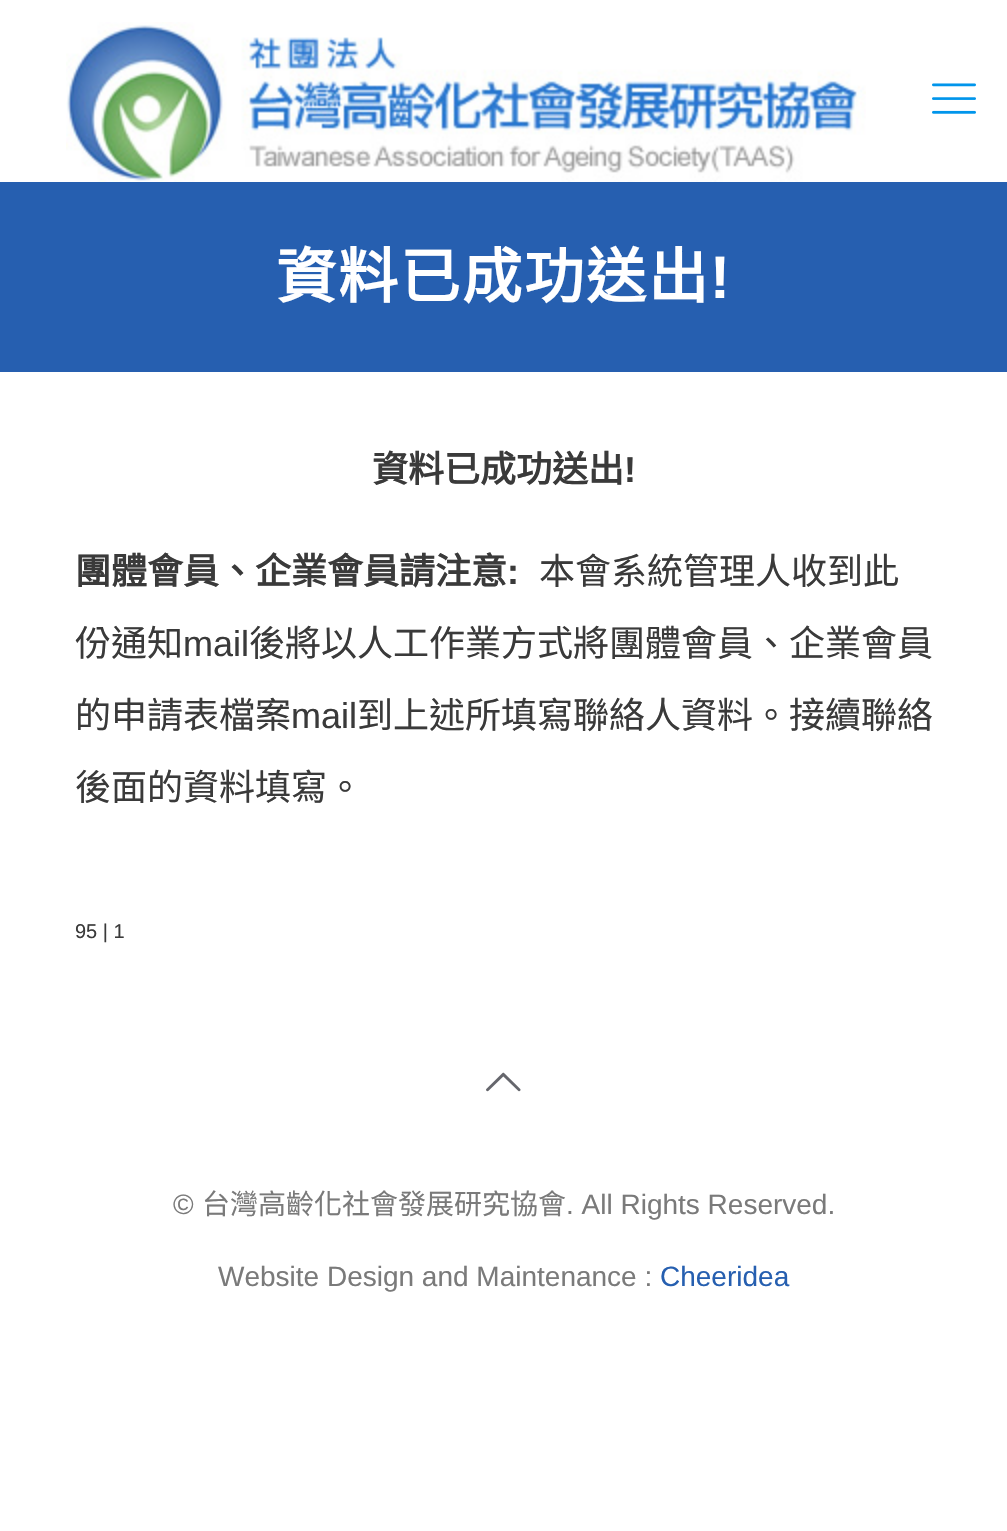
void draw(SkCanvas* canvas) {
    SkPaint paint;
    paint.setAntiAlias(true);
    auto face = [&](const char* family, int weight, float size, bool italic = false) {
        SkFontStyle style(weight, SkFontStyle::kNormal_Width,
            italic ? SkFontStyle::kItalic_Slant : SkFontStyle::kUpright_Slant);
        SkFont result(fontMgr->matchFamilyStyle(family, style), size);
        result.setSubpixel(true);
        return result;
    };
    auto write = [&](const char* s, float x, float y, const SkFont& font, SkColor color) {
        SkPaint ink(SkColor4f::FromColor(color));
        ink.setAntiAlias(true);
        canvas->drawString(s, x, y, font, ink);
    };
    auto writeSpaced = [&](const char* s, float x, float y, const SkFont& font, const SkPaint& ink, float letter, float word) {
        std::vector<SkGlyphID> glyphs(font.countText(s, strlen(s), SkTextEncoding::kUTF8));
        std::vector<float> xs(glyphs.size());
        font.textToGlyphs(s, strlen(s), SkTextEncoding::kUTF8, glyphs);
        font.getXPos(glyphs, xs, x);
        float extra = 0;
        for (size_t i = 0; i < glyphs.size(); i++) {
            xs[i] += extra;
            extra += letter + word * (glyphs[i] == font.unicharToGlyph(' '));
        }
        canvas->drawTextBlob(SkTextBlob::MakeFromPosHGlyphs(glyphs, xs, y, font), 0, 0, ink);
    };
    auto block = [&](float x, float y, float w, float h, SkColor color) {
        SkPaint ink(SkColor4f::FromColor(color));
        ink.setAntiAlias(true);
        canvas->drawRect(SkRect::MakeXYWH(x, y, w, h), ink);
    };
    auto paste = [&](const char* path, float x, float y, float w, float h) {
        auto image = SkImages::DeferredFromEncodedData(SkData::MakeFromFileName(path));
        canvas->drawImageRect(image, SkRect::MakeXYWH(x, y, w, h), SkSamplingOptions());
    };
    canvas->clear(SK_ColorWHITE);
    paste("pic1.png", 66, 22, 800, 160);
    paste("pic2.png", 932, 83, 44, 31);
    block(0, 182, 1007, 190, SkColorSetRGB(38, 95, 176));
    auto kFont1 = face("Noto Sans CJK TC", 700, 60);
    paint.setColor(SK_ColorWHITE);
    writeSpaced("資料已成功送出", 276, 298, kFont1, paint, 2, 0);
    auto kFont2 = face("Liberation Sans", 700, 60);
    writeSpaced("!", 710, 298, kFont2, paint, 2, 0);
    auto kFont3 = face("Noto Sans CJK TC", 700, 36);
    write("資料已成功送出", 372, 482, kFont3, SkColorSetRGB(58, 58, 58));
    auto kFont4 = face("Liberation Sans", 700, 36);
    write("!", 624, 482, kFont4, SkColorSetRGB(58, 58, 58));
    write("團體會員、企業會員請注意", 75, 584, kFont3, SkColorSetRGB(58, 58, 58));
    write(":", 507, 584, kFont4, SkColorSetRGB(58, 58, 58));
    auto kFont5 = face("Noto Sans CJK TC", 400, 36);
    write("本會系統管理人收到此", 539, 584, kFont5, SkColorSetRGB(58, 58, 58));
    write("份通知", 75, 656, kFont5, SkColorSetRGB(58, 58, 58));
    auto kFont6 = face("Liberation Sans", 400, 36);
    write("mail", 183, 656, kFont6, SkColorSetRGB(58, 58, 58));
    write("後將以人工作業方式將團體會員、企業會員", 249, 656, kFont5, SkColorSetRGB(58, 58, 58));
    write("的申請表檔案", 75, 728, kFont5, SkColorSetRGB(58, 58, 58));
    write("mail", 291, 728, kFont6, SkColorSetRGB(58, 58, 58));
    write("到上述所填寫聯絡人資料。接續聯絡", 357, 728, kFont5, SkColorSetRGB(58, 58, 58));
    write("後面的資料填寫。", 75, 800, kFont5, SkColorSetRGB(58, 58, 58));
    auto kFont7 = face("Liberation Sans", 400, 20);
    write("95 | 1", 75, 938, kFont7, SkColorSetRGB(58, 58, 58));
    paste("pic3.png", 486, 1072, 35, 20);
    auto kFont8 = face("Liberation Sans", 400, 28);
    write("©", 173, 1214, kFont8, SkColorSetRGB(122, 122, 122));
    auto kFont9 = face("Noto Sans CJK TC", 400, 28);
    write("台灣高齡化社會發展研究協會", 202, 1214, kFont9, SkColorSetRGB(122, 122, 122));
    write(". All Rights Reserved.", 566, 1214, kFont8, SkColorSetRGB(122, 122, 122));
    write("Website Design and Maintenance :", 218, 1286, kFont8, SkColorSetRGB(122, 122, 122));
    write("Cheeridea", 660, 1286, kFont8, SkColorSetRGB(38, 95, 176));
}
